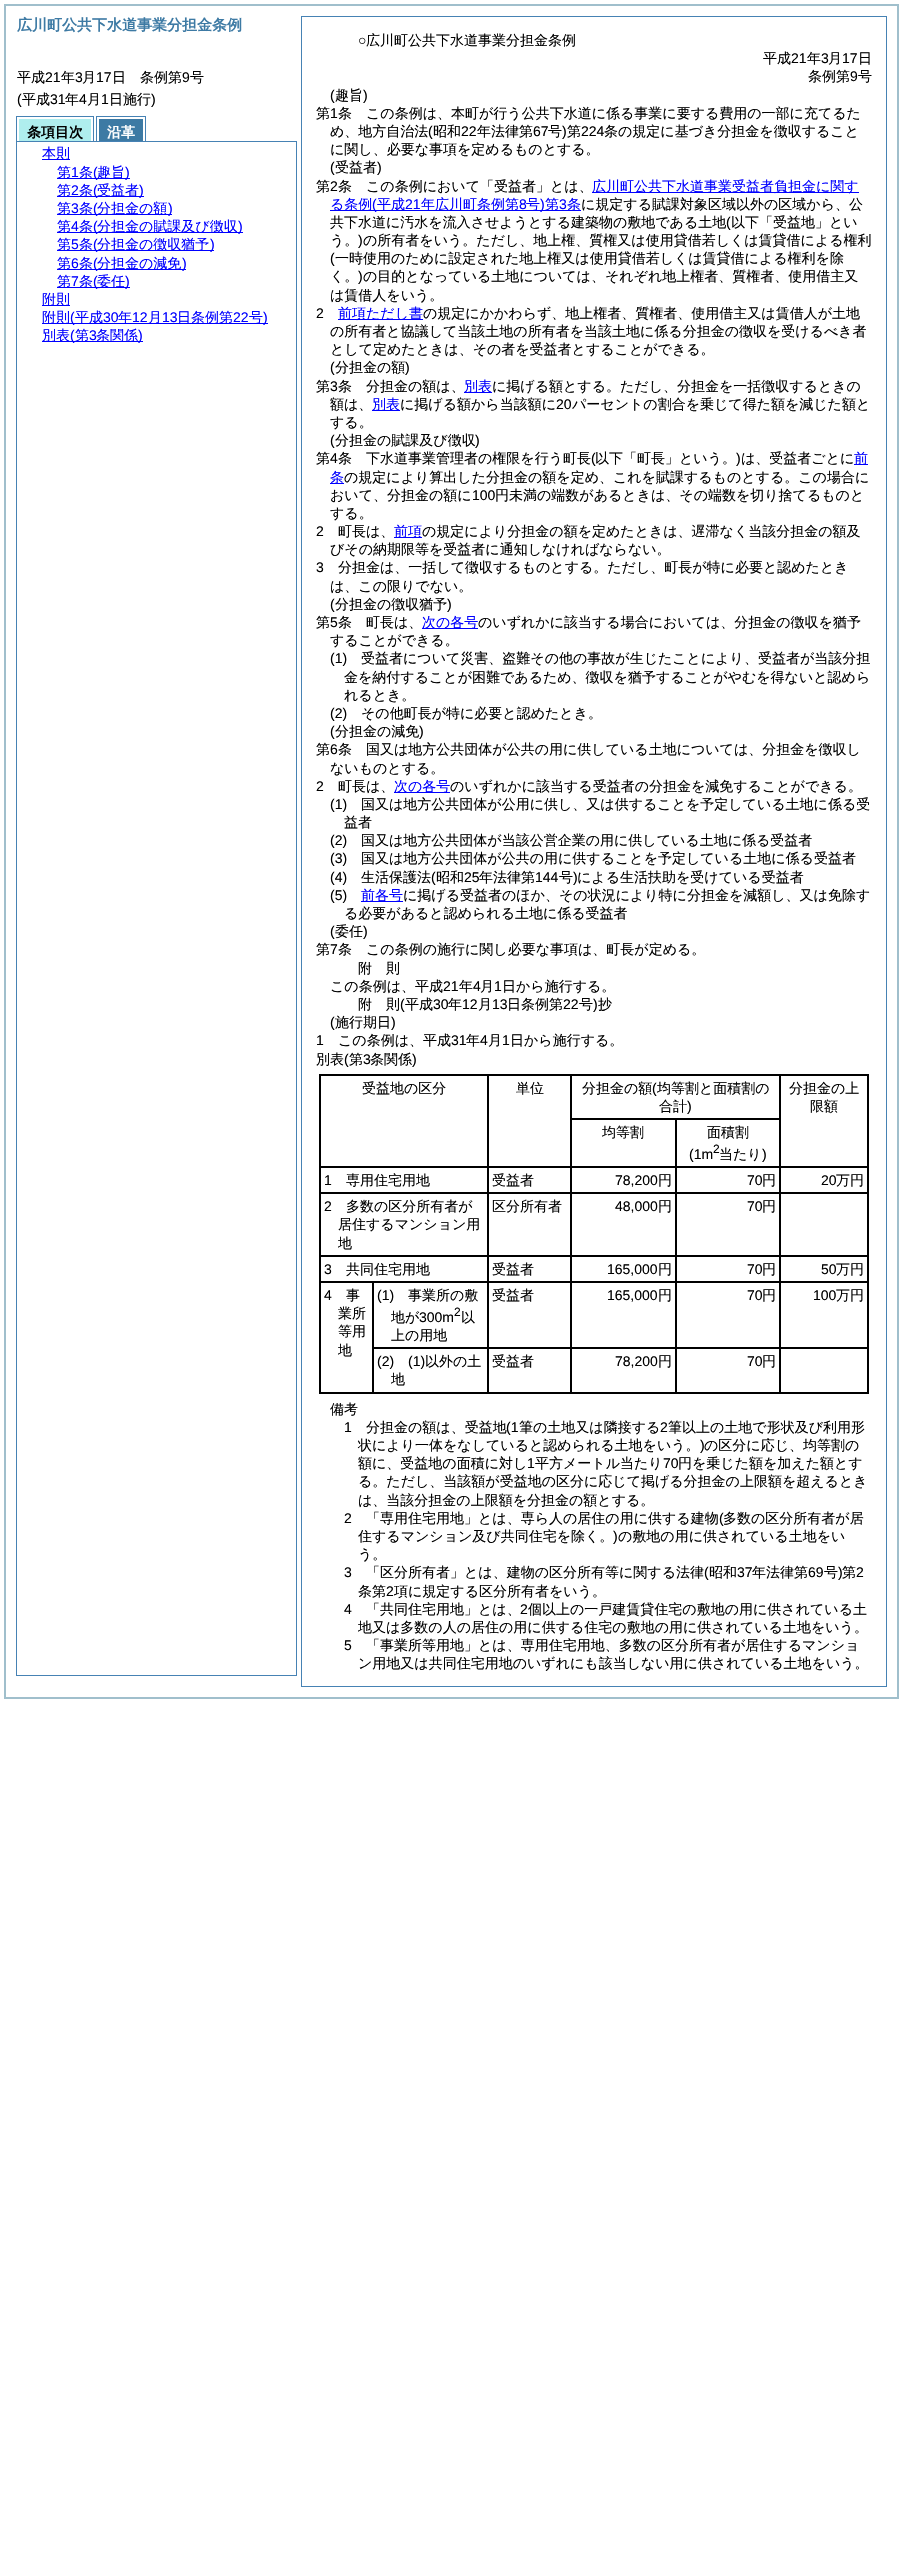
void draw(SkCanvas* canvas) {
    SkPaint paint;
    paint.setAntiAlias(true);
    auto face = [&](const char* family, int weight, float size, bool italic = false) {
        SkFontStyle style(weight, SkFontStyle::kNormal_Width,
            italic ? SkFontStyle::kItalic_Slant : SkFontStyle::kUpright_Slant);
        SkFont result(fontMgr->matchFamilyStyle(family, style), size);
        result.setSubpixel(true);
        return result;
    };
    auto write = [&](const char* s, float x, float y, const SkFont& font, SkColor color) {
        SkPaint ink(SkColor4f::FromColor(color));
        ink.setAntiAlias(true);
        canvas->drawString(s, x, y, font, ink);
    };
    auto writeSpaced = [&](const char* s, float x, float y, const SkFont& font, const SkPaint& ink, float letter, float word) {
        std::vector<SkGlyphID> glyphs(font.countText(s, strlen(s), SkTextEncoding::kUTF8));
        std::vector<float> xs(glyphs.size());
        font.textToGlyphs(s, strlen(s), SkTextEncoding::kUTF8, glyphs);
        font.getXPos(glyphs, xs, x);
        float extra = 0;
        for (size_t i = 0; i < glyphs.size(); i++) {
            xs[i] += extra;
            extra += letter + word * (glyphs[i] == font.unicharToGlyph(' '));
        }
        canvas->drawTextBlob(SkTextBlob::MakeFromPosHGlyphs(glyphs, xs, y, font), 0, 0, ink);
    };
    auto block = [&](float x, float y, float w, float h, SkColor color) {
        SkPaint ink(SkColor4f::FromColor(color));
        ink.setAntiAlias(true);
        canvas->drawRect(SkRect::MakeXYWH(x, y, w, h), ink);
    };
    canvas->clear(SK_ColorWHITE);
    paint.setStyle(SkPaint::kStroke_Style);
    paint.setStrokeWidth(2);
    paint.setColor(SkColorSetRGB(160, 191, 204));
    canvas->drawRect(SkRect::MakeXYWH(5, 5, 893, 1693), paint);
    auto kFont1 = face("WenQuanYi Zen Hei", 700, 15);
    write("広川町公共下水道事業分担金条例", 17, 30, kFont1, SkColorSetRGB(61, 122, 164));
    auto kFont2 = face("WenQuanYi Zen Hei", 500, 14);
    write("平成", 17, 82, kFont2, SK_ColorBLACK);
    auto kFont3 = face("Liberation Sans", 400, 14);
    write("21", 45, 82, kFont3, SK_ColorBLACK);
    write("年", 61, 82, kFont2, SK_ColorBLACK);
    write("3", 75, 82, kFont3, SK_ColorBLACK);
    write("月", 82, 82, kFont2, SK_ColorBLACK);
    write("17", 96, 82, kFont3, SK_ColorBLACK);
    write("日　条例第", 112, 82, kFont2, SK_ColorBLACK);
    write("9", 182, 82, kFont3, SK_ColorBLACK);
    write("号", 190, 82, kFont2, SK_ColorBLACK);
    write("(", 17, 104, kFont3, SK_ColorBLACK);
    write("平成", 22, 104, kFont2, SK_ColorBLACK);
    write("31", 50, 104, kFont3, SK_ColorBLACK);
    write("年", 65, 104, kFont2, SK_ColorBLACK);
    write("4", 79, 104, kFont3, SK_ColorBLACK);
    write("月", 87, 104, kFont2, SK_ColorBLACK);
    write("1", 101, 104, kFont3, SK_ColorBLACK);
    write("日施行", 109, 104, kFont2, SK_ColorBLACK);
    write(")", 151, 104, kFont3, SK_ColorBLACK);
    block(16, 116, 78, 1, SkColorSetRGB(70, 130, 180));
    block(93, 116, 1, 26, SkColorSetRGB(70, 130, 180));
    block(16, 116, 1, 26, SkColorSetRGB(70, 130, 180));
    block(19, 119, 72, 22, SkColorSetRGB(175, 238, 238));
    auto kFont4 = face("WenQuanYi Zen Hei", 700, 14);
    write("条項目次", 27, 137, kFont4, SK_ColorBLACK);
    block(96, 116, 50, 1, SkColorSetRGB(70, 130, 180));
    block(145, 116, 1, 26, SkColorSetRGB(70, 130, 180));
    block(96, 116, 1, 26, SkColorSetRGB(70, 130, 180));
    block(99, 119, 44, 22, SkColorSetRGB(61, 122, 164));
    write("沿革", 107, 137, kFont4, SK_ColorWHITE);
    paint.setStrokeWidth(1);
    paint.setColor(SkColorSetRGB(70, 130, 180));
    canvas->drawRect(SkRect::MakeXYWH(16.5f, 141.5f, 280, 1534), paint);
    block(42, 159, 28, 1, SkColorSetRGB(0, 0, 255));
    write("本則", 42, 158, kFont2, SkColorSetRGB(0, 0, 255));
    block(57, 178, 73, 1, SkColorSetRGB(0, 0, 255));
    write("第", 57, 177, kFont2, SkColorSetRGB(0, 0, 255));
    write("1", 71, 177, kFont3, SkColorSetRGB(0, 0, 255));
    write("条", 79, 177, kFont2, SkColorSetRGB(0, 0, 255));
    write("(", 93, 177, kFont3, SkColorSetRGB(0, 0, 255));
    write("趣旨", 97, 177, kFont2, SkColorSetRGB(0, 0, 255));
    write(")", 125, 177, kFont3, SkColorSetRGB(0, 0, 255));
    block(57, 196, 87, 1, SkColorSetRGB(0, 0, 255));
    write("第", 57, 195, kFont2, SkColorSetRGB(0, 0, 255));
    write("2", 71, 195, kFont3, SkColorSetRGB(0, 0, 255));
    write("条", 79, 195, kFont2, SkColorSetRGB(0, 0, 255));
    write("(", 93, 195, kFont3, SkColorSetRGB(0, 0, 255));
    write("受益者", 97, 195, kFont2, SkColorSetRGB(0, 0, 255));
    write(")", 139, 195, kFont3, SkColorSetRGB(0, 0, 255));
    block(57, 214, 115, 1, SkColorSetRGB(0, 0, 255));
    write("第", 57, 213, kFont2, SkColorSetRGB(0, 0, 255));
    write("3", 71, 213, kFont3, SkColorSetRGB(0, 0, 255));
    write("条", 79, 213, kFont2, SkColorSetRGB(0, 0, 255));
    write("(", 93, 213, kFont3, SkColorSetRGB(0, 0, 255));
    write("分担金の額", 97, 213, kFont2, SkColorSetRGB(0, 0, 255));
    write(")", 168, 213, kFont3, SkColorSetRGB(0, 0, 255));
    block(57, 232, 186, 1, SkColorSetRGB(0, 0, 255));
    write("第", 57, 231, kFont2, SkColorSetRGB(0, 0, 255));
    write("4", 71, 231, kFont3, SkColorSetRGB(0, 0, 255));
    write("条", 79, 231, kFont2, SkColorSetRGB(0, 0, 255));
    write("(", 93, 231, kFont3, SkColorSetRGB(0, 0, 255));
    write("分担金の賦課及び徴収", 97, 231, kFont2, SkColorSetRGB(0, 0, 255));
    write(")", 238, 231, kFont3, SkColorSetRGB(0, 0, 255));
    block(57, 250, 157, 1, SkColorSetRGB(0, 0, 255));
    write("第", 57, 249, kFont2, SkColorSetRGB(0, 0, 255));
    write("5", 71, 249, kFont3, SkColorSetRGB(0, 0, 255));
    write("条", 79, 249, kFont2, SkColorSetRGB(0, 0, 255));
    write("(", 93, 249, kFont3, SkColorSetRGB(0, 0, 255));
    write("分担金の徴収猶予", 97, 249, kFont2, SkColorSetRGB(0, 0, 255));
    write(")", 210, 249, kFont3, SkColorSetRGB(0, 0, 255));
    block(57, 269, 129, 1, SkColorSetRGB(0, 0, 255));
    write("第", 57, 268, kFont2, SkColorSetRGB(0, 0, 255));
    write("6", 71, 268, kFont3, SkColorSetRGB(0, 0, 255));
    write("条", 79, 268, kFont2, SkColorSetRGB(0, 0, 255));
    write("(", 93, 268, kFont3, SkColorSetRGB(0, 0, 255));
    write("分担金の減免", 97, 268, kFont2, SkColorSetRGB(0, 0, 255));
    write(")", 182, 268, kFont3, SkColorSetRGB(0, 0, 255));
    block(57, 287, 73, 1, SkColorSetRGB(0, 0, 255));
    write("第", 57, 286, kFont2, SkColorSetRGB(0, 0, 255));
    write("7", 71, 286, kFont3, SkColorSetRGB(0, 0, 255));
    write("条", 79, 286, kFont2, SkColorSetRGB(0, 0, 255));
    write("(", 93, 286, kFont3, SkColorSetRGB(0, 0, 255));
    write("委任", 97, 286, kFont2, SkColorSetRGB(0, 0, 255));
    write(")", 125, 286, kFont3, SkColorSetRGB(0, 0, 255));
    block(42, 305, 28, 1, SkColorSetRGB(0, 0, 255));
    write("附則", 42, 304, kFont2, SkColorSetRGB(0, 0, 255));
    block(42, 323, 226, 1, SkColorSetRGB(0, 0, 255));
    write("附則", 42, 322, kFont2, SkColorSetRGB(0, 0, 255));
    write("(", 70, 322, kFont3, SkColorSetRGB(0, 0, 255));
    write("平成", 75, 322, kFont2, SkColorSetRGB(0, 0, 255));
    write("30", 103, 322, kFont3, SkColorSetRGB(0, 0, 255));
    write("年", 118, 322, kFont2, SkColorSetRGB(0, 0, 255));
    write("12", 132, 322, kFont3, SkColorSetRGB(0, 0, 255));
    write("月", 148, 322, kFont2, SkColorSetRGB(0, 0, 255));
    write("13", 162, 322, kFont3, SkColorSetRGB(0, 0, 255));
    write("日条例第", 177, 322, kFont2, SkColorSetRGB(0, 0, 255));
    write("22", 233, 322, kFont3, SkColorSetRGB(0, 0, 255));
    write("号", 249, 322, kFont2, SkColorSetRGB(0, 0, 255));
    write(")", 263, 322, kFont3, SkColorSetRGB(0, 0, 255));
    block(42, 341, 101, 1, SkColorSetRGB(0, 0, 255));
    write("別表", 42, 340, kFont2, SkColorSetRGB(0, 0, 255));
    write("(", 70, 340, kFont3, SkColorSetRGB(0, 0, 255));
    write("第", 75, 340, kFont2, SkColorSetRGB(0, 0, 255));
    write("3", 89, 340, kFont3, SkColorSetRGB(0, 0, 255));
    write("条関係", 96, 340, kFont2, SkColorSetRGB(0, 0, 255));
    write(")", 138, 340, kFont3, SkColorSetRGB(0, 0, 255));
    canvas->drawRect(SkRect::MakeXYWH(301.5f, 16.5f, 585, 1670), paint);
    write("○", 358, 45, kFont3, SK_ColorBLACK);
    write("広川町公共下水道事業分担金条例", 366, 45, kFont2, SK_ColorBLACK);
    write("平成", 763, 63, kFont2, SK_ColorBLACK);
    write("21", 791, 63, kFont3, SK_ColorBLACK);
    write("年", 807, 63, kFont2, SK_ColorBLACK);
    write("3", 821, 63, kFont3, SK_ColorBLACK);
    write("月", 828, 63, kFont2, SK_ColorBLACK);
    write("17", 842, 63, kFont3, SK_ColorBLACK);
    write("日", 858, 63, kFont2, SK_ColorBLACK);
    write("条例第", 808, 81, kFont2, SK_ColorBLACK);
    write("9", 850, 81, kFont3, SK_ColorBLACK);
    write("号", 858, 81, kFont2, SK_ColorBLACK);
    write("(", 330, 100, kFont3, SK_ColorBLACK);
    write("趣旨", 335, 100, kFont2, SK_ColorBLACK);
    write(")", 363, 100, kFont3, SK_ColorBLACK);
    write("第", 316, 118, kFont2, SK_ColorBLACK);
    write("1", 330, 118, kFont3, SK_ColorBLACK);
    write("条", 338, 118, kFont2, SK_ColorBLACK);
    write("この条例は、本町が行う公共下水道に係る事業に要する費用の一部に充てるた", 366, 118, kFont2, SK_ColorBLACK);
    write("め、地方自治法", 330, 136, kFont2, SK_ColorBLACK);
    write("(", 428, 136, kFont3, SK_ColorBLACK);
    write("昭和", 433, 136, kFont2, SK_ColorBLACK);
    write("22", 461, 136, kFont3, SK_ColorBLACK);
    write("年法律第", 477, 136, kFont2, SK_ColorBLACK);
    write("67", 533, 136, kFont3, SK_ColorBLACK);
    write("号", 548, 136, kFont2, SK_ColorBLACK);
    write(")", 562, 136, kFont3, SK_ColorBLACK);
    write("第", 567, 136, kFont2, SK_ColorBLACK);
    write("224", 581, 136, kFont3, SK_ColorBLACK);
    write("条の規定に基づき分担金を徴収すること", 604, 136, kFont2, SK_ColorBLACK);
    write("に関し、必要な事項を定めるものとする。", 330, 154, kFont2, SK_ColorBLACK);
    write("(", 330, 172, kFont3, SK_ColorBLACK);
    write("受益者", 335, 172, kFont2, SK_ColorBLACK);
    write(")", 377, 172, kFont3, SK_ColorBLACK);
    write("第", 316, 191, kFont2, SK_ColorBLACK);
    write("2", 330, 191, kFont3, SK_ColorBLACK);
    write("条", 338, 191, kFont2, SK_ColorBLACK);
    write("この条例において「受益者」とは、", 366, 191, kFont2, SK_ColorBLACK);
    block(592, 192, 267, 1, SkColorSetRGB(0, 0, 255));
    write("広川町公共下水道事業受益者負担金に関す", 592, 191, kFont2, SkColorSetRGB(0, 0, 255));
    block(330, 210, 251, 1, SkColorSetRGB(0, 0, 255));
    write("る条例", 330, 209, kFont2, SkColorSetRGB(0, 0, 255));
    write("(", 372, 209, kFont3, SkColorSetRGB(0, 0, 255));
    write("平成", 377, 209, kFont2, SkColorSetRGB(0, 0, 255));
    write("21", 405, 209, kFont3, SkColorSetRGB(0, 0, 255));
    write("年広川町条例第", 421, 209, kFont2, SkColorSetRGB(0, 0, 255));
    write("8", 519, 209, kFont3, SkColorSetRGB(0, 0, 255));
    write("号", 526, 209, kFont2, SkColorSetRGB(0, 0, 255));
    write(")", 540, 209, kFont3, SkColorSetRGB(0, 0, 255));
    write("第", 545, 209, kFont2, SkColorSetRGB(0, 0, 255));
    write("3", 559, 209, kFont3, SkColorSetRGB(0, 0, 255));
    write("条", 567, 209, kFont2, SkColorSetRGB(0, 0, 255));
    write("に規定する賦課対象区域以外の区域から、公", 581, 209, kFont2, SK_ColorBLACK);
    write("共下水道に汚水を流入させようとする建築物の敷地である土地", 330, 227, kFont2, SK_ColorBLACK);
    write("(", 726, 227, kFont3, SK_ColorBLACK);
    write("以下「受益地」とい", 731, 227, kFont2, SK_ColorBLACK);
    write("う。", 330, 245, kFont2, SK_ColorBLACK);
    write(")", 358, 245, kFont3, SK_ColorBLACK);
    write("の所有者をいう。ただし、地上権、質権又は使用貸借若しくは賃貸借による権利", 363, 245, kFont2, SK_ColorBLACK);
    write("(", 330, 263, kFont3, SK_ColorBLACK);
    write("一時使用のために設定された地上権又は使用貸借若しくは賃貸借による権利を除", 335, 263, kFont2, SK_ColorBLACK);
    write("く。", 330, 281, kFont2, SK_ColorBLACK);
    write(")", 358, 281, kFont3, SK_ColorBLACK);
    write("の目的となっている土地については、それぞれ地上権者、質権者、使用借主又", 363, 281, kFont2, SK_ColorBLACK);
    write("は賃借人をいう。", 330, 300, kFont2, SK_ColorBLACK);
    write("2", 316, 318, kFont3, SK_ColorBLACK);
    block(338, 319, 85, 1, SkColorSetRGB(0, 0, 255));
    write("前項ただし書", 338, 318, kFont2, SkColorSetRGB(0, 0, 255));
    write("の規定にかかわらず、地上権者、質権者、使用借主又は賃借人が土地", 423, 318, kFont2, SK_ColorBLACK);
    write("の所有者と協議して当該土地の所有者を当該土地に係る分担金の徴収を受けるべき者", 330, 336, kFont2, SK_ColorBLACK);
    write("として定めたときは、その者を受益者とすることができる。", 330, 354, kFont2, SK_ColorBLACK);
    write("(", 330, 372, kFont3, SK_ColorBLACK);
    write("分担金の額", 335, 372, kFont2, SK_ColorBLACK);
    write(")", 405, 372, kFont3, SK_ColorBLACK);
    write("第", 316, 391, kFont2, SK_ColorBLACK);
    write("3", 330, 391, kFont3, SK_ColorBLACK);
    write("条", 338, 391, kFont2, SK_ColorBLACK);
    write("分担金の額は、", 366, 391, kFont2, SK_ColorBLACK);
    block(464, 392, 28, 1, SkColorSetRGB(0, 0, 255));
    write("別表", 464, 391, kFont2, SkColorSetRGB(0, 0, 255));
    write("に掲げる額とする。ただし、分担金を一括徴収するときの", 492, 391, kFont2, SK_ColorBLACK);
    write("額は、", 330, 409, kFont2, SK_ColorBLACK);
    block(372, 410, 28, 1, SkColorSetRGB(0, 0, 255));
    write("別表", 372, 409, kFont2, SkColorSetRGB(0, 0, 255));
    write("に掲げる額から当該額に", 400, 409, kFont2, SK_ColorBLACK);
    write("20", 556, 409, kFont3, SK_ColorBLACK);
    write("パーセントの割合を乗じて得た額を減じた額と", 572, 409, kFont2, SK_ColorBLACK);
    write("する。", 330, 427, kFont2, SK_ColorBLACK);
    write("(", 330, 445, kFont3, SK_ColorBLACK);
    write("分担金の賦課及び徴収", 335, 445, kFont2, SK_ColorBLACK);
    write(")", 475, 445, kFont3, SK_ColorBLACK);
    write("第", 316, 463, kFont2, SK_ColorBLACK);
    write("4", 330, 463, kFont3, SK_ColorBLACK);
    write("条", 338, 463, kFont2, SK_ColorBLACK);
    write("下水道事業管理者の権限を行う町長", 366, 463, kFont2, SK_ColorBLACK);
    write("(", 591, 463, kFont3, SK_ColorBLACK);
    write("以下「町長」という。", 595, 463, kFont2, SK_ColorBLACK);
    write(")", 736, 463, kFont3, SK_ColorBLACK);
    write("は、受益者ごとに", 741, 463, kFont2, SK_ColorBLACK);
    block(854, 464, 14, 1, SkColorSetRGB(0, 0, 255));
    write("前", 854, 463, kFont2, SkColorSetRGB(0, 0, 255));
    block(330, 483, 14, 1, SkColorSetRGB(0, 0, 255));
    write("条", 330, 482, kFont2, SkColorSetRGB(0, 0, 255));
    write("の規定により算出した分担金の額を定め、これを賦課するものとする。この場合に", 344, 482, kFont2, SK_ColorBLACK);
    write("おいて、分担金の額に", 330, 500, kFont2, SK_ColorBLACK);
    write("100", 472, 500, kFont3, SK_ColorBLACK);
    write("円未満の端数があるときは、その端数を切り捨てるものと", 495, 500, kFont2, SK_ColorBLACK);
    write("する。", 330, 518, kFont2, SK_ColorBLACK);
    write("2", 316, 536, kFont3, SK_ColorBLACK);
    write("町長は、", 338, 536, kFont2, SK_ColorBLACK);
    block(394, 537, 28, 1, SkColorSetRGB(0, 0, 255));
    write("前項", 394, 536, kFont2, SkColorSetRGB(0, 0, 255));
    write("の規定により分担金の額を定めたときは、遅滞なく当該分担金の額及", 422, 536, kFont2, SK_ColorBLACK);
    write("びその納期限等を受益者に通知しなければならない。", 330, 554, kFont2, SK_ColorBLACK);
    write("3", 316, 572, kFont3, SK_ColorBLACK);
    write("分担金は、一括して徴収するものとする。ただし、町長が特に必要と認めたとき", 338, 572, kFont2, SK_ColorBLACK);
    write("は、この限りでない。", 330, 591, kFont2, SK_ColorBLACK);
    write("(", 330, 609, kFont3, SK_ColorBLACK);
    write("分担金の徴収猶予", 335, 609, kFont2, SK_ColorBLACK);
    write(")", 447, 609, kFont3, SK_ColorBLACK);
    write("第", 316, 627, kFont2, SK_ColorBLACK);
    write("5", 330, 627, kFont3, SK_ColorBLACK);
    write("条", 338, 627, kFont2, SK_ColorBLACK);
    write("町長は、", 366, 627, kFont2, SK_ColorBLACK);
    block(422, 628, 56, 1, SkColorSetRGB(0, 0, 255));
    write("次の各号", 422, 627, kFont2, SkColorSetRGB(0, 0, 255));
    write("のいずれかに該当する場合においては、分担金の徴収を猶予", 478, 627, kFont2, SK_ColorBLACK);
    write("することができる。", 330, 645, kFont2, SK_ColorBLACK);
    write("(1)", 330, 663, kFont3, SK_ColorBLACK);
    write("受益者について災害、盗難その他の事故が生じたことにより、受益者が当該分担", 361, 663, kFont2, SK_ColorBLACK);
    write("金を納付することが困難であるため、徴収を猶予することがやむを得ないと認めら", 344, 682, kFont2, SK_ColorBLACK);
    write("れるとき。", 344, 700, kFont2, SK_ColorBLACK);
    write("(2)", 330, 718, kFont3, SK_ColorBLACK);
    write("その他町長が特に必要と認めたとき。", 361, 718, kFont2, SK_ColorBLACK);
    write("(", 330, 736, kFont3, SK_ColorBLACK);
    write("分担金の減免", 335, 736, kFont2, SK_ColorBLACK);
    write(")", 419, 736, kFont3, SK_ColorBLACK);
    write("第", 316, 754, kFont2, SK_ColorBLACK);
    write("6", 330, 754, kFont3, SK_ColorBLACK);
    write("条", 338, 754, kFont2, SK_ColorBLACK);
    write("国又は地方公共団体が公共の用に供している土地については、分担金を徴収し", 366, 754, kFont2, SK_ColorBLACK);
    write("ないものとする。", 330, 773, kFont2, SK_ColorBLACK);
    write("2", 316, 791, kFont3, SK_ColorBLACK);
    write("町長は、", 338, 791, kFont2, SK_ColorBLACK);
    block(394, 792, 56, 1, SkColorSetRGB(0, 0, 255));
    write("次の各号", 394, 791, kFont2, SkColorSetRGB(0, 0, 255));
    write("のいずれかに該当する受益者の分担金を減免することができる。", 450, 791, kFont2, SK_ColorBLACK);
    write("(1)", 330, 809, kFont3, SK_ColorBLACK);
    write("国又は地方公共団体が公用に供し、又は供することを予定している土地に係る受", 361, 809, kFont2, SK_ColorBLACK);
    write("益者", 344, 827, kFont2, SK_ColorBLACK);
    write("(2)", 330, 845, kFont3, SK_ColorBLACK);
    write("国又は地方公共団体が当該公営企業の用に供している土地に係る受益者", 361, 845, kFont2, SK_ColorBLACK);
    write("(3)", 330, 863, kFont3, SK_ColorBLACK);
    write("国又は地方公共団体が公共の用に供することを予定している土地に係る受益者", 361, 863, kFont2, SK_ColorBLACK);
    write("(4)", 330, 882, kFont3, SK_ColorBLACK);
    write("生活保護法", 361, 882, kFont2, SK_ColorBLACK);
    write("(", 431, 882, kFont3, SK_ColorBLACK);
    write("昭和", 436, 882, kFont2, SK_ColorBLACK);
    write("25", 464, 882, kFont3, SK_ColorBLACK);
    write("年法律第", 479, 882, kFont2, SK_ColorBLACK);
    write("144", 535, 882, kFont3, SK_ColorBLACK);
    write("号", 559, 882, kFont2, SK_ColorBLACK);
    write(")", 573, 882, kFont3, SK_ColorBLACK);
    write("による生活扶助を受けている受益者", 577, 882, kFont2, SK_ColorBLACK);
    write("(5)", 330, 900, kFont3, SK_ColorBLACK);
    block(361, 901, 42, 1, SkColorSetRGB(0, 0, 255));
    write("前各号", 361, 900, kFont2, SkColorSetRGB(0, 0, 255));
    write("に掲げる受益者のほか、その状況により特に分担金を減額し、又は免除す", 403, 900, kFont2, SK_ColorBLACK);
    write("る必要があると認められる土地に係る受益者", 344, 918, kFont2, SK_ColorBLACK);
    write("(", 330, 936, kFont3, SK_ColorBLACK);
    write("委任", 335, 936, kFont2, SK_ColorBLACK);
    write(")", 363, 936, kFont3, SK_ColorBLACK);
    write("第", 316, 954, kFont2, SK_ColorBLACK);
    write("7", 330, 954, kFont3, SK_ColorBLACK);
    write("条", 338, 954, kFont2, SK_ColorBLACK);
    write("この条例の施行に関し必要な事項は、町長が定める。", 366, 954, kFont2, SK_ColorBLACK);
    paint.setStyle(SkPaint::kFill_Style);
    paint.setColor(SK_ColorBLACK);
    writeSpaced("附", 358, 973, kFont2, paint, 14, 0);
    write("則", 386, 973, kFont2, SK_ColorBLACK);
    write("この条例は、平成", 330, 991, kFont2, SK_ColorBLACK);
    write("21", 443, 991, kFont3, SK_ColorBLACK);
    write("年", 459, 991, kFont2, SK_ColorBLACK);
    write("4", 473, 991, kFont3, SK_ColorBLACK);
    write("月", 480, 991, kFont2, SK_ColorBLACK);
    write("1", 494, 991, kFont3, SK_ColorBLACK);
    write("日から施行する。", 502, 991, kFont2, SK_ColorBLACK);
    writeSpaced("附", 358, 1009, kFont2, paint, 14, 0);
    write("則", 386, 1009, kFont2, SK_ColorBLACK);
    write("(", 400, 1009, kFont3, SK_ColorBLACK);
    write("平成", 405, 1009, kFont2, SK_ColorBLACK);
    write("30", 433, 1009, kFont3, SK_ColorBLACK);
    write("年", 448, 1009, kFont2, SK_ColorBLACK);
    write("12", 462, 1009, kFont3, SK_ColorBLACK);
    write("月", 478, 1009, kFont2, SK_ColorBLACK);
    write("13", 492, 1009, kFont3, SK_ColorBLACK);
    write("日条例第", 507, 1009, kFont2, SK_ColorBLACK);
    write("22", 563, 1009, kFont3, SK_ColorBLACK);
    write("号", 579, 1009, kFont2, SK_ColorBLACK);
    write(")", 593, 1009, kFont3, SK_ColorBLACK);
    write("抄", 598, 1009, kFont2, SK_ColorBLACK);
    write("(", 330, 1027, kFont3, SK_ColorBLACK);
    write("施行期日", 335, 1027, kFont2, SK_ColorBLACK);
    write(")", 391, 1027, kFont3, SK_ColorBLACK);
    write("1", 316, 1045, kFont3, SK_ColorBLACK);
    write("この条例は、平成", 338, 1045, kFont2, SK_ColorBLACK);
    write("31", 451, 1045, kFont3, SK_ColorBLACK);
    write("年", 466, 1045, kFont2, SK_ColorBLACK);
    write("4", 480, 1045, kFont3, SK_ColorBLACK);
    write("月", 488, 1045, kFont2, SK_ColorBLACK);
    write("1", 502, 1045, kFont3, SK_ColorBLACK);
    write("日から施行する。", 510, 1045, kFont2, SK_ColorBLACK);
    write("別表", 316, 1064, kFont2, SK_ColorBLACK);
    write("(", 344, 1064, kFont3, SK_ColorBLACK);
    write("第", 349, 1064, kFont2, SK_ColorBLACK);
    write("3", 363, 1064, kFont3, SK_ColorBLACK);
    write("条関係", 370, 1064, kFont2, SK_ColorBLACK);
    write(")", 412, 1064, kFont3, SK_ColorBLACK);
    paint.setStyle(SkPaint::kStroke_Style);
    paint.setStrokeWidth(2);
    canvas->drawRect(SkRect::MakeXYWH(320, 1075, 168, 92), paint);
    write("受益地の区分", 362, 1093, kFont2, SK_ColorBLACK);
    block(489, 1074, 380, 2, SK_ColorBLACK);
    block(570, 1074, 2, 320, SK_ColorBLACK);
    block(489, 1166, 83, 2, SK_ColorBLACK);
    write("単位", 516, 1093, kFont2, SK_ColorBLACK);
    block(779, 1074, 2, 320, SK_ColorBLACK);
    block(572, 1118, 209, 2, SK_ColorBLACK);
    write("分担金の額", 582, 1093, kFont2, SK_ColorBLACK);
    write("(", 652, 1093, kFont3, SK_ColorBLACK);
    write("均等割と面積割の", 657, 1093, kFont2, SK_ColorBLACK);
    write("合計", 659, 1111, kFont2, SK_ColorBLACK);
    write(")", 687, 1111, kFont3, SK_ColorBLACK);
    block(867, 1074, 2, 320, SK_ColorBLACK);
    block(781, 1166, 88, 2, SK_ColorBLACK);
    write("分担金の上", 789, 1093, kFont2, SK_ColorBLACK);
    write("限額", 810, 1111, kFont2, SK_ColorBLACK);
    block(675, 1120, 2, 274, SK_ColorBLACK);
    block(572, 1166, 209, 2, SK_ColorBLACK);
    write("均等割", 602, 1137, kFont2, SK_ColorBLACK);
    write("面積割", 707, 1137, kFont2, SK_ColorBLACK);
    write("(1m", 689, 1159, kFont3, SK_ColorBLACK);
    auto kFont5 = face("Liberation Sans", 400, 12);
    write("2", 713, 1153, kFont5, SK_ColorBLACK);
    write("当たり", 719, 1159, kFont2, SK_ColorBLACK);
    write(")", 762, 1159, kFont3, SK_ColorBLACK);
    block(487, 1168, 2, 226, SK_ColorBLACK);
    block(319, 1192, 550, 2, SK_ColorBLACK);
    block(319, 1168, 2, 26, SK_ColorBLACK);
    write("1", 324, 1185, kFont3, SK_ColorBLACK);
    write("専用住宅用地", 346, 1185, kFont2, SK_ColorBLACK);
    write("受益者", 492, 1185, kFont2, SK_ColorBLACK);
    write("78,200", 615, 1185, kFont3, SK_ColorBLACK);
    write("円", 658, 1185, kFont2, SK_ColorBLACK);
    write("70", 747, 1185, kFont3, SK_ColorBLACK);
    write("円", 762, 1185, kFont2, SK_ColorBLACK);
    write("20", 821, 1185, kFont3, SK_ColorBLACK);
    write("万円", 836, 1185, kFont2, SK_ColorBLACK);
    block(319, 1255, 550, 2, SK_ColorBLACK);
    block(319, 1194, 2, 63, SK_ColorBLACK);
    write("2", 324, 1211, kFont3, SK_ColorBLACK);
    write("多数の区分所有者が", 346, 1211, kFont2, SK_ColorBLACK);
    write("居住するマンション用", 338, 1229, kFont2, SK_ColorBLACK);
    write("地", 338, 1248, kFont2, SK_ColorBLACK);
    write("区分所有者", 492, 1211, kFont2, SK_ColorBLACK);
    write("48,000", 615, 1211, kFont3, SK_ColorBLACK);
    write("円", 658, 1211, kFont2, SK_ColorBLACK);
    write("70", 747, 1211, kFont3, SK_ColorBLACK);
    write("円", 762, 1211, kFont2, SK_ColorBLACK);
    block(319, 1281, 550, 2, SK_ColorBLACK);
    block(319, 1257, 2, 26, SK_ColorBLACK);
    write("3", 324, 1274, kFont3, SK_ColorBLACK);
    write("共同住宅用地", 346, 1274, kFont2, SK_ColorBLACK);
    write("受益者", 492, 1274, kFont2, SK_ColorBLACK);
    write("165,000", 607, 1274, kFont3, SK_ColorBLACK);
    write("円", 658, 1274, kFont2, SK_ColorBLACK);
    write("70", 747, 1274, kFont3, SK_ColorBLACK);
    write("円", 762, 1274, kFont2, SK_ColorBLACK);
    write("50", 821, 1274, kFont3, SK_ColorBLACK);
    write("万円", 836, 1274, kFont2, SK_ColorBLACK);
    block(372, 1283, 2, 111, SK_ColorBLACK);
    block(319, 1392, 550, 2, SK_ColorBLACK);
    block(319, 1283, 2, 111, SK_ColorBLACK);
    write("4", 324, 1300, kFont3, SK_ColorBLACK);
    write("事", 346, 1300, kFont2, SK_ColorBLACK);
    write("業所", 338, 1318, kFont2, SK_ColorBLACK);
    write("等用", 338, 1336, kFont2, SK_ColorBLACK);
    write("地", 338, 1355, kFont2, SK_ColorBLACK);
    block(374, 1347, 495, 2, SK_ColorBLACK);
    write("(1)", 377, 1300, kFont3, SK_ColorBLACK);
    write("事業所の敷", 408, 1300, kFont2, SK_ColorBLACK);
    write("地が", 391, 1322, kFont2, SK_ColorBLACK);
    write("300m", 419, 1322, kFont3, SK_ColorBLACK);
    write("2", 454, 1316, kFont5, SK_ColorBLACK);
    write("以", 461, 1322, kFont2, SK_ColorBLACK);
    write("上の用地", 391, 1340, kFont2, SK_ColorBLACK);
    write("受益者", 492, 1300, kFont2, SK_ColorBLACK);
    write("165,000", 607, 1300, kFont3, SK_ColorBLACK);
    write("円", 658, 1300, kFont2, SK_ColorBLACK);
    write("70", 747, 1300, kFont3, SK_ColorBLACK);
    write("円", 762, 1300, kFont2, SK_ColorBLACK);
    write("100", 813, 1300, kFont3, SK_ColorBLACK);
    write("万円", 836, 1300, kFont2, SK_ColorBLACK);
    write("(2)", 377, 1366, kFont3, SK_ColorBLACK);
    write("(1)", 408, 1366, kFont3, SK_ColorBLACK);
    write("以外の土", 425, 1366, kFont2, SK_ColorBLACK);
    write("地", 391, 1384, kFont2, SK_ColorBLACK);
    write("受益者", 492, 1366, kFont2, SK_ColorBLACK);
    write("78,200", 615, 1366, kFont3, SK_ColorBLACK);
    write("円", 658, 1366, kFont2, SK_ColorBLACK);
    write("70", 747, 1366, kFont3, SK_ColorBLACK);
    write("円", 762, 1366, kFont2, SK_ColorBLACK);
    write("備考", 330, 1414, kFont2, SK_ColorBLACK);
    write("1", 344, 1432, kFont3, SK_ColorBLACK);
    write("分担金の額は、受益地", 366, 1432, kFont2, SK_ColorBLACK);
    write("(1", 506, 1432, kFont3, SK_ColorBLACK);
    write("筆の土地又は隣接する", 519, 1432, kFont2, SK_ColorBLACK);
    write("2", 660, 1432, kFont3, SK_ColorBLACK);
    write("筆以上の土地で形状及び利用形", 668, 1432, kFont2, SK_ColorBLACK);
    write("状により一体をなしていると認められる土地をいう。", 358, 1450, kFont2, SK_ColorBLACK);
    write(")", 700, 1450, kFont3, SK_ColorBLACK);
    write("の区分に応じ、均等割の", 704, 1450, kFont2, SK_ColorBLACK);
    write("額に、受益地の面積に対し", 358, 1468, kFont2, SK_ColorBLACK);
    write("1", 527, 1468, kFont3, SK_ColorBLACK);
    write("平方メートル当たり", 535, 1468, kFont2, SK_ColorBLACK);
    write("70", 663, 1468, kFont3, SK_ColorBLACK);
    write("円を乗じた額を加えた額とす", 678, 1468, kFont2, SK_ColorBLACK);
    write("る。ただし、当該額が受益地の区分に応じて掲げる分担金の上限額を超えるとき", 358, 1486, kFont2, SK_ColorBLACK);
    write("は、当該分担金の上限額を分担金の額とする。", 358, 1505, kFont2, SK_ColorBLACK);
    write("2", 344, 1523, kFont3, SK_ColorBLACK);
    write("「専用住宅用地」とは、専ら人の居住の用に供する建物", 366, 1523, kFont2, SK_ColorBLACK);
    write("(", 719, 1523, kFont3, SK_ColorBLACK);
    write("多数の区分所有者が居", 723, 1523, kFont2, SK_ColorBLACK);
    write("住するマンション及び共同住宅を除く。", 358, 1541, kFont2, SK_ColorBLACK);
    write(")", 613, 1541, kFont3, SK_ColorBLACK);
    write("の敷地の用に供されている土地をい", 618, 1541, kFont2, SK_ColorBLACK);
    write("う。", 358, 1559, kFont2, SK_ColorBLACK);
    write("3", 344, 1577, kFont3, SK_ColorBLACK);
    write("「区分所有者」とは、建物の区分所有等に関する法律", 366, 1577, kFont2, SK_ColorBLACK);
    write("(", 704, 1577, kFont3, SK_ColorBLACK);
    write("昭和", 709, 1577, kFont2, SK_ColorBLACK);
    write("37", 737, 1577, kFont3, SK_ColorBLACK);
    write("年法律第", 752, 1577, kFont2, SK_ColorBLACK);
    write("69", 808, 1577, kFont3, SK_ColorBLACK);
    write("号", 824, 1577, kFont2, SK_ColorBLACK);
    write(")", 838, 1577, kFont3, SK_ColorBLACK);
    write("第", 842, 1577, kFont2, SK_ColorBLACK);
    write("2", 856, 1577, kFont3, SK_ColorBLACK);
    write("条第", 358, 1596, kFont2, SK_ColorBLACK);
    write("2", 386, 1596, kFont3, SK_ColorBLACK);
    write("項に規定する区分所有者をいう。", 394, 1596, kFont2, SK_ColorBLACK);
    write("4", 344, 1614, kFont3, SK_ColorBLACK);
    write("「共同住宅用地」とは、", 366, 1614, kFont2, SK_ColorBLACK);
    write("2", 520, 1614, kFont3, SK_ColorBLACK);
    write("個以上の一戸建賃貸住宅の敷地の用に供されている土", 528, 1614, kFont2, SK_ColorBLACK);
    write("地又は多数の人の居住の用に供する住宅の敷地の用に供されている土地をいう。", 358, 1632, kFont2, SK_ColorBLACK);
    write("5", 344, 1650, kFont3, SK_ColorBLACK);
    write("「事業所等用地」とは、専用住宅用地、多数の区分所有者が居住するマンショ", 366, 1650, kFont2, SK_ColorBLACK);
    write("ン用地又は共同住宅用地のいずれにも該当しない用に供されている土地をいう。", 358, 1668, kFont2, SK_ColorBLACK);
}
